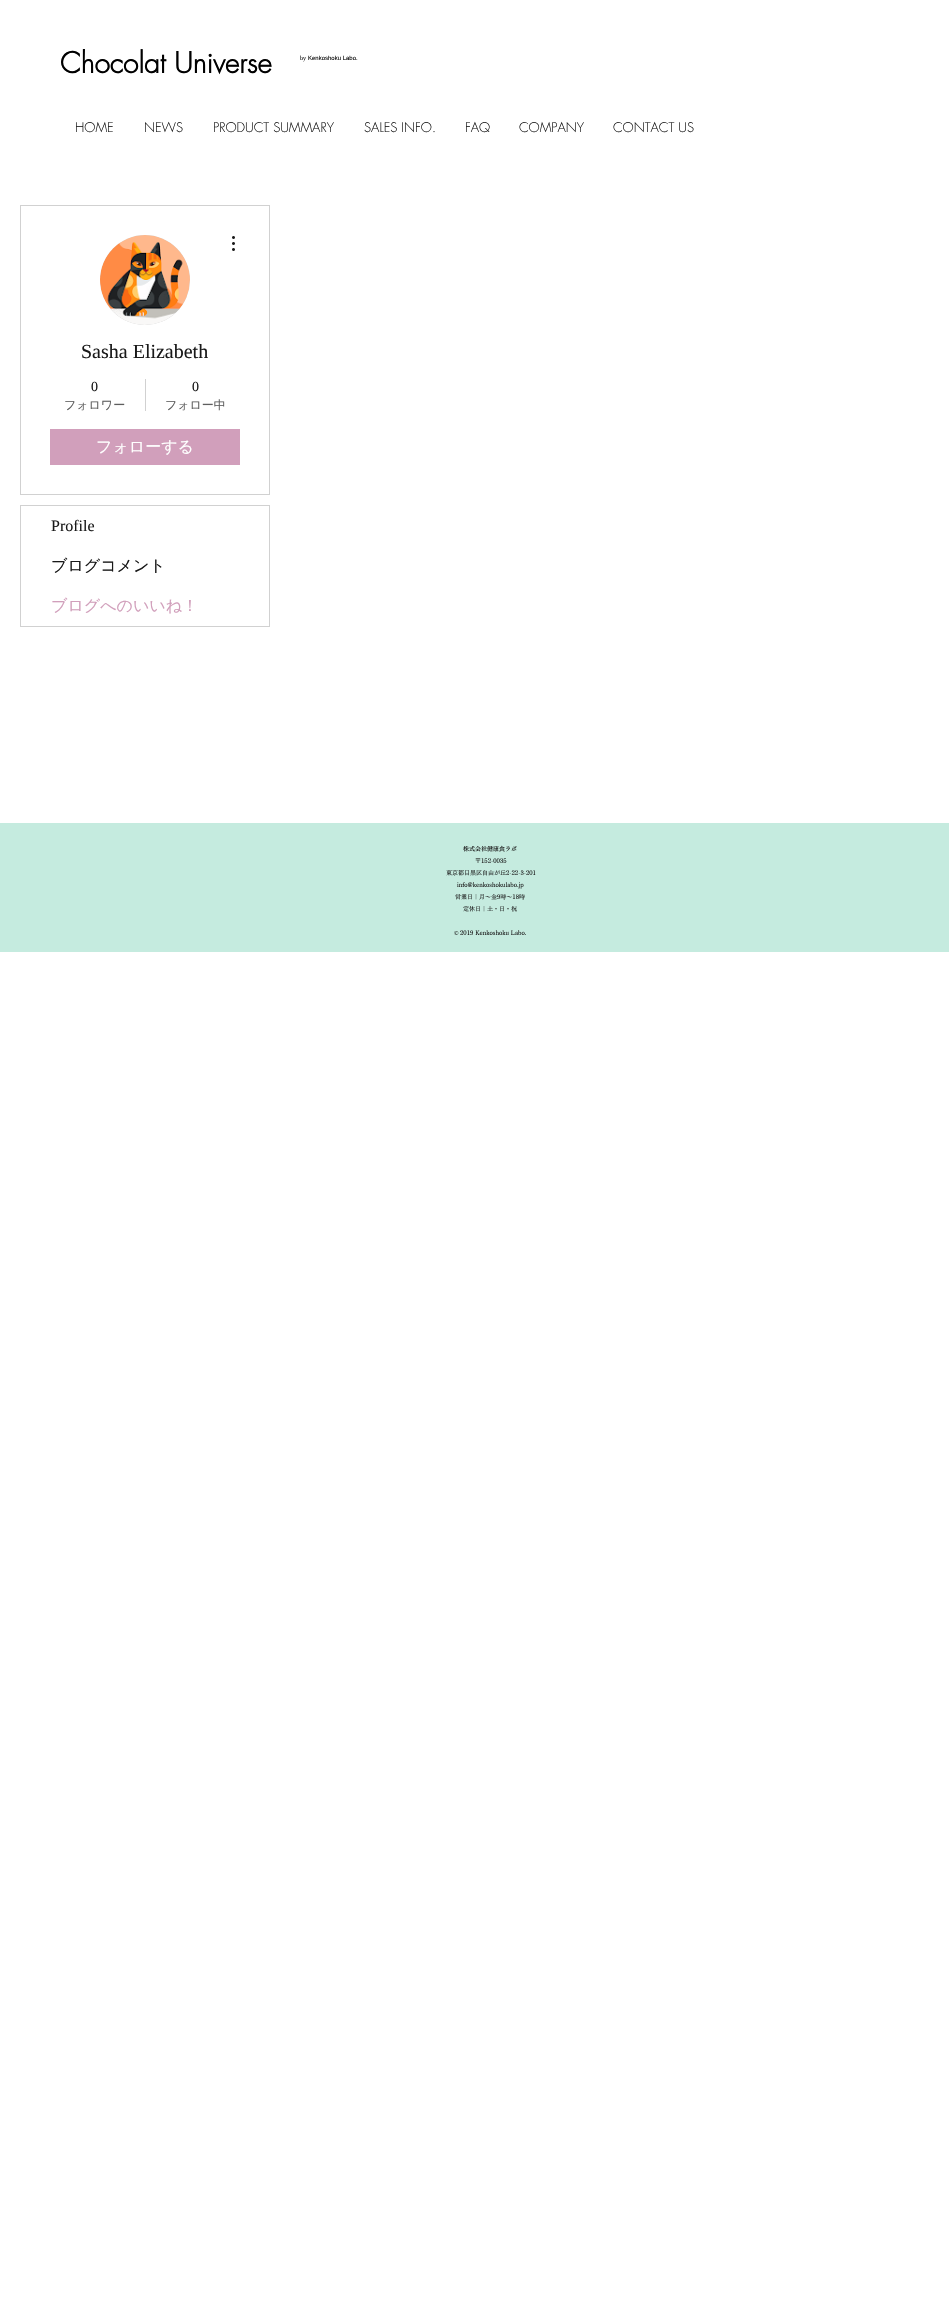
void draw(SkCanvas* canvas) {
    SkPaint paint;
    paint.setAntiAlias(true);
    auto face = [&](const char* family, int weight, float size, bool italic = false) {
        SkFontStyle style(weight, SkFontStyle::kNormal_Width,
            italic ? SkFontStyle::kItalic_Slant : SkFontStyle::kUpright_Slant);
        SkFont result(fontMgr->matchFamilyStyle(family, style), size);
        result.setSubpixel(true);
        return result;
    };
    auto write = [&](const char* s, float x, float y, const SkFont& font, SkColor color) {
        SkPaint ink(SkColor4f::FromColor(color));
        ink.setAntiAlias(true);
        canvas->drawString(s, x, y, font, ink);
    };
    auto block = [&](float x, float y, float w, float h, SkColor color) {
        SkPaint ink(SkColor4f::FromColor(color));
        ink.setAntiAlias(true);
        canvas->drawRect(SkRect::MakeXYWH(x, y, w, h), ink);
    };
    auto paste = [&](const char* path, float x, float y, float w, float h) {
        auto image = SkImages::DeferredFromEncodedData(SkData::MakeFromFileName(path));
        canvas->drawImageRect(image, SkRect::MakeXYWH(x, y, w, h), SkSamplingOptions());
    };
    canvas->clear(SK_ColorWHITE);
    auto kFont1 = face("futura", 700, 28);
    write("Chocolat Universe", 60, 73, kFont1, SK_ColorBLACK);
    auto kFont2 = face("Liberation Serif", 400, 6);
    write("by", 300, 60, kFont2, SK_ColorBLACK);
    auto kFont3 = face("Liberation Sans", 400, 6);
    write("Kenkoshoku Labo.", 308, 60, kFont3, SK_ColorBLACK);
    auto kFont4 = face("futura", 300, 13);
    write("HOME", 75, 132, kFont4, SkColorSetRGB(25, 25, 25));
    write("NEWS", 144, 132, kFont4, SkColorSetRGB(25, 25, 25));
    write("PRODUCT SUMMARY", 213, 132, kFont4, SkColorSetRGB(25, 25, 25));
    write("SALES INFO.", 364, 132, kFont4, SkColorSetRGB(25, 25, 25));
    write("FAQ", 465, 132, kFont4, SkColorSetRGB(25, 25, 25));
    write("COMPANY", 519, 132, kFont4, SkColorSetRGB(25, 25, 25));
    write("CONTACT US", 613, 132, kFont4, SkColorSetRGB(25, 25, 25));
    paint.setStyle(SkPaint::kStroke_Style);
    paint.setStrokeWidth(1);
    paint.setColor(SkColorSetRGB(209, 209, 209));
    canvas->drawRect(SkRect::MakeXYWH(20.5f, 205.5f, 249, 289), paint);
    paint.setStyle(SkPaint::kFill_Style);
    paint.setColor(SkColorSetRGB(216, 216, 216));
    canvas->drawCircle(145, 280, 45, paint);
    paste("pic1.png", 100, 235, 90, 90);
    paste("pic2.png", 232, 236, 3, 15);
    auto kFont5 = face("Liberation Serif", 400, 20);
    write("Sasha Elizabeth", 81, 358, kFont5, SkColorSetRGB(25, 25, 25));
    auto kFont6 = face("Liberation Serif", 400, 14);
    write("0", 91, 391, kFont6, SkColorSetRGB(25, 25, 25));
    auto kFont7 = face("WenQuanYi Zen Hei", 500, 12);
    write("フォロワー", 64, 409, kFont7, SkColorSetRGB(94, 94, 94));
    block(145, 379, 1, 32, SkColorSetRGB(209, 209, 209));
    write("0", 192, 391, kFont6, SkColorSetRGB(25, 25, 25));
    write("フォロー中", 165, 409, kFont7, SkColorSetRGB(94, 94, 94));
    block(50, 429, 190, 36, SkColorSetRGB(209, 159, 187));
    auto kFont8 = face("WenQuanYi Zen Hei", 500, 16);
    write("フォローする", 96, 452, kFont8, SK_ColorWHITE);
    paint.setStyle(SkPaint::kStroke_Style);
    paint.setColor(SkColorSetRGB(209, 209, 209));
    canvas->drawRect(SkRect::MakeXYWH(20.5f, 505.5f, 249, 121), paint);
    auto kFont9 = face("Liberation Serif", 400, 16);
    write("Profile", 51, 531, kFont9, SkColorSetRGB(25, 25, 25));
    write("ブログコメント", 51, 571, kFont8, SkColorSetRGB(25, 25, 25));
    write("ブログへのいいね！", 51, 611, kFont8, SkColorSetRGB(209, 159, 187));
    block(0, 823, 949, 129, SkColorSetRGB(197, 235, 223));
    auto kFont10 = face("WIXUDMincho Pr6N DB", 600, 6);
    write("株式会社健康食ラボ", 463, 851, kFont10, SkColorSetRGB(25, 25, 25));
    auto kFont11 = face("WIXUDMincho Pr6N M", 500, 6);
    write("〒152-0035", 475, 863, kFont11, SkColorSetRGB(25, 25, 25));
    write("東京都目黒区自由が丘2-22-3-201", 446, 875, kFont11, SkColorSetRGB(25, 25, 25));
    write("info@kenkoshokulabo.jp", 457, 887, kFont11, SkColorSetRGB(25, 25, 25));
    write("営業日｜月～金9時～18時", 455, 899, kFont11, SkColorSetRGB(25, 25, 25));
    write("定休日｜土・日・祝", 463, 911, kFont11, SkColorSetRGB(25, 25, 25));
    write("©", 454, 935, kFont2, SkColorSetRGB(25, 25, 25));
    write("2019 Kenkoshoku Labo.", 460, 935, kFont11, SkColorSetRGB(25, 25, 25));
}
